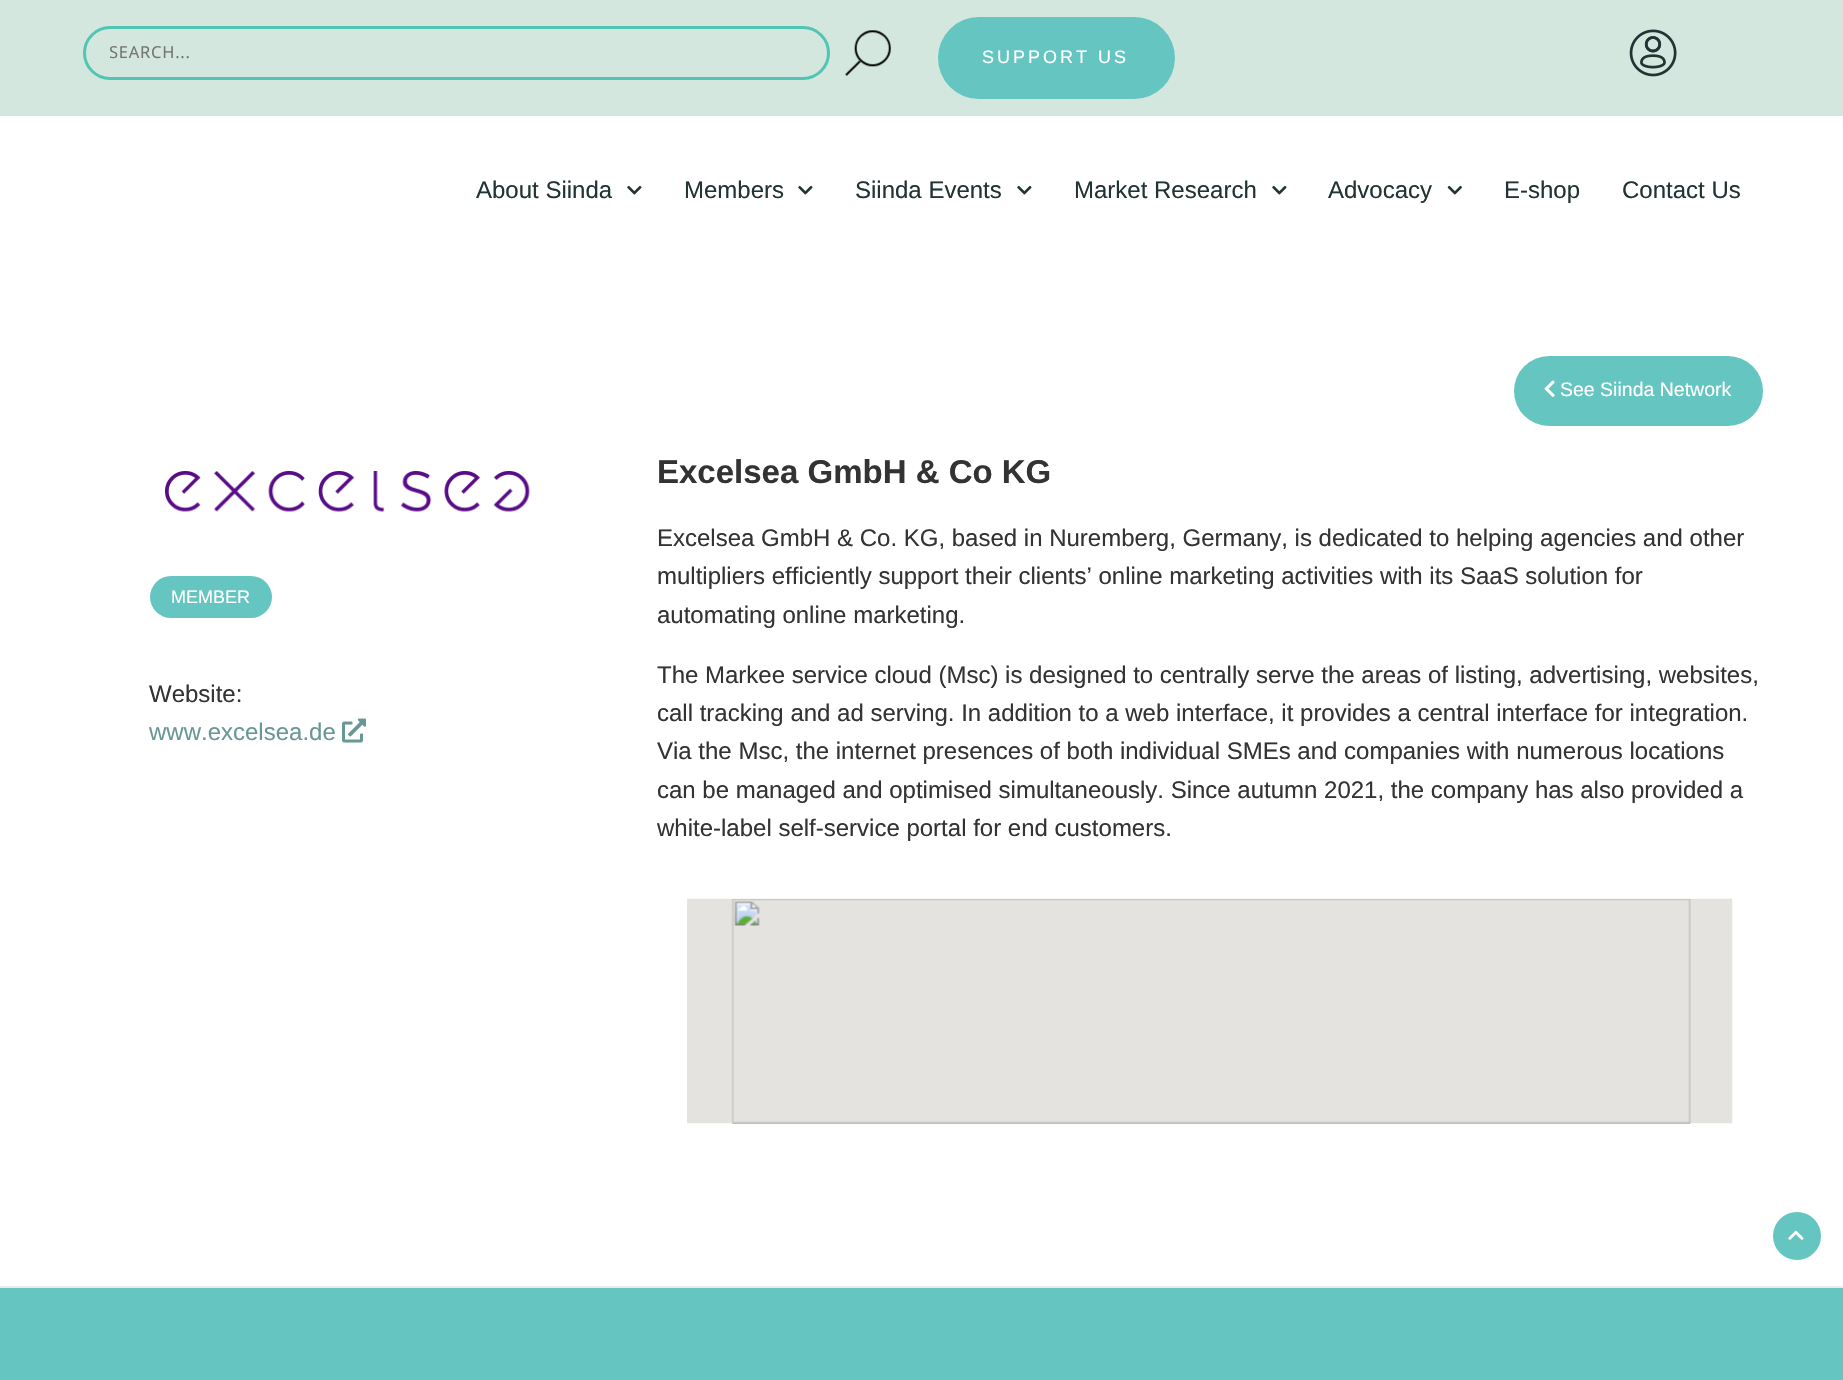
void draw(SkCanvas* canvas) {
    SkPaint paint;
    paint.setAntiAlias(true);
    auto face = [&](const char* family, int weight, float size, bool italic = false) {
        SkFontStyle style(weight, SkFontStyle::kNormal_Width,
            italic ? SkFontStyle::kItalic_Slant : SkFontStyle::kUpright_Slant);
        SkFont result(fontMgr->matchFamilyStyle(family, style), size);
        result.setSubpixel(true);
        return result;
    };
    auto write = [&](const char* s, float x, float y, const SkFont& font, SkColor color) {
        SkPaint ink(SkColor4f::FromColor(color));
        ink.setAntiAlias(true);
        canvas->drawString(s, x, y, font, ink);
    };
    auto writeSpaced = [&](const char* s, float x, float y, const SkFont& font, const SkPaint& ink, float letter, float word) {
        std::vector<SkGlyphID> glyphs(font.countText(s, strlen(s), SkTextEncoding::kUTF8));
        std::vector<float> xs(glyphs.size());
        font.textToGlyphs(s, strlen(s), SkTextEncoding::kUTF8, glyphs);
        font.getXPos(glyphs, xs, x);
        float extra = 0;
        for (size_t i = 0; i < glyphs.size(); i++) {
            xs[i] += extra;
            extra += letter + word * (glyphs[i] == font.unicharToGlyph(' '));
        }
        canvas->drawTextBlob(SkTextBlob::MakeFromPosHGlyphs(glyphs, xs, y, font), 0, 0, ink);
    };
    auto block = [&](float x, float y, float w, float h, SkColor color) {
        SkPaint ink(SkColor4f::FromColor(color));
        ink.setAntiAlias(true);
        canvas->drawRect(SkRect::MakeXYWH(x, y, w, h), ink);
    };
    auto card = [&](float x, float y, float w, float h, float radius, SkColor color) {
        SkPaint ink(SkColor4f::FromColor(color));
        ink.setAntiAlias(true);
        canvas->drawRoundRect(SkRect::MakeXYWH(x, y, w, h), radius, radius, ink);
    };
    auto paste = [&](const char* path, float x, float y, float w, float h) {
        auto image = SkImages::DeferredFromEncodedData(SkData::MakeFromFileName(path));
        canvas->drawImageRect(image, SkRect::MakeXYWH(x, y, w, h), SkSamplingOptions());
    };
    canvas->clear(SK_ColorWHITE);
    block(0, 0, 1843, 116, SkColorSetRGB(211, 231, 223));
    paint.setStyle(SkPaint::kStroke_Style);
    paint.setStrokeWidth(3);
    paint.setColor(SkColorSetRGB(80, 197, 180));
    canvas->drawRoundRect(SkRect::MakeXYWH(84.5f, 27.5f, 744, 51), 25.5f, 25.5f, paint);
    canvas->save();
    canvas->clipRect(SkRect::MakeXYWH(110, 41, 693, 22));
    auto kFont1 = face("Noto Sans", 400, 16.5f);
    paint.setStyle(SkPaint::kFill_Style);
    paint.setColor(SkColorSetRGB(117, 117, 117));
    writeSpaced("SEARCH...", 109, 58, kFont1, paint, 0.75f, 0);
    canvas->restore();
    paste("pic1.png", 845, 30, 46, 46);
    card(938, 17, 237, 82, 41, SkColorSetRGB(100, 197, 193));
    auto kFont2 = face("Liberation Sans", 400, 18);
    paint.setColor(SK_ColorWHITE);
    writeSpaced("SUPPORT US", 982, 63, kFont2, paint, 3, 0);
    paste("pic2.png", 1629, 29, 48, 48);
    auto kFont3 = face("Liberation Sans", 400, 24);
    write("About Siinda", 476, 198, kFont3, SkColorSetRGB(33, 52, 51));
    paste("pic3.png", 627, 185, 15, 10);
    write("Members", 684, 198, kFont3, SkColorSetRGB(33, 52, 51));
    paste("pic3.png", 798, 185, 15, 10);
    write("Siinda Events", 855, 198, kFont3, SkColorSetRGB(33, 52, 51));
    paste("pic3.png", 1017, 185, 15, 10);
    write("Market Research", 1074, 198, kFont3, SkColorSetRGB(33, 52, 51));
    paste("pic3.png", 1272, 185, 15, 10);
    write("Advocacy", 1328, 198, kFont3, SkColorSetRGB(33, 52, 51));
    paste("pic4.png", 1447, 185, 15, 10);
    write("E-shop", 1504, 198, kFont3, SkColorSetRGB(33, 52, 51));
    write("Contact Us", 1622, 198, kFont3, SkColorSetRGB(33, 52, 51));
    card(1514, 356, 249, 70, 35, SkColorSetRGB(100, 197, 193));
    paste("pic5.png", 1544, 380, 11, 17);
    auto kFont4 = face("Liberation Sans", 400, 19.5f);
    write("See Siinda Network", 1560, 396, kFont4, SK_ColorWHITE);
    paste("pic6.png", 165, 471, 365, 41);
    card(150, 576, 122, 42, 21, SkColorSetRGB(100, 197, 193));
    write("MEMBER", 171, 603, kFont2, SK_ColorWHITE);
    write("Website:", 149, 702, kFont3, SkColorSetRGB(51, 51, 51));
    write("www.excelsea.de", 149, 740, kFont3, SkColorSetRGB(104, 151, 149));
    paste("pic7.png", 342, 718, 24, 25);
    auto kFont5 = face("Liberation Sans", 700, 33);
    write("Excelsea GmbH & Co KG", 657, 483, kFont5, SkColorSetRGB(51, 51, 51));
    write("Excelsea GmbH & Co. KG, based in Nuremberg, Germany, is dedicated to helping agencies and other", 657, 546, kFont3, SkColorSetRGB(51, 51, 51));
    write("multipliers efficiently support their clients’ online marketing activities with its SaaS solution for", 657, 584, kFont3, SkColorSetRGB(51, 51, 51));
    write("automating online marketing.", 657, 623, kFont3, SkColorSetRGB(51, 51, 51));
    write("The Markee service cloud (Msc) is designed to centrally serve the areas of listing, advertising, websites,", 657, 683, kFont3, SkColorSetRGB(51, 51, 51));
    write("call tracking and ad serving. In addition to a web interface, it provides a central interface for integration.", 657, 721, kFont3, SkColorSetRGB(51, 51, 51));
    write("Via the Msc, the internet presences of both individual SMEs and companies with numerous locations", 657, 759, kFont3, SkColorSetRGB(51, 51, 51));
    write("can be managed and optimised simultaneously. Since autumn 2021, the company has also provided a", 657, 798, kFont3, SkColorSetRGB(51, 51, 51));
    write("white-label self-service portal for end customers.", 657, 836, kFont3, SkColorSetRGB(51, 51, 51));
    paste("pic8.png", 687, 898, 1046, 226);
    paint.setColor(SkColorSetRGB(100, 197, 193));
    canvas->drawCircle(1797, 1236, 24, paint);
    paste("pic9.png", 1788, 1230, 16, 10);
    block(0, 1288, 1843, 92, SkColorSetRGB(100, 197, 193));
    block(0, 1286, 1843, 2, SkColorSetRGB(234, 234, 234));
}
